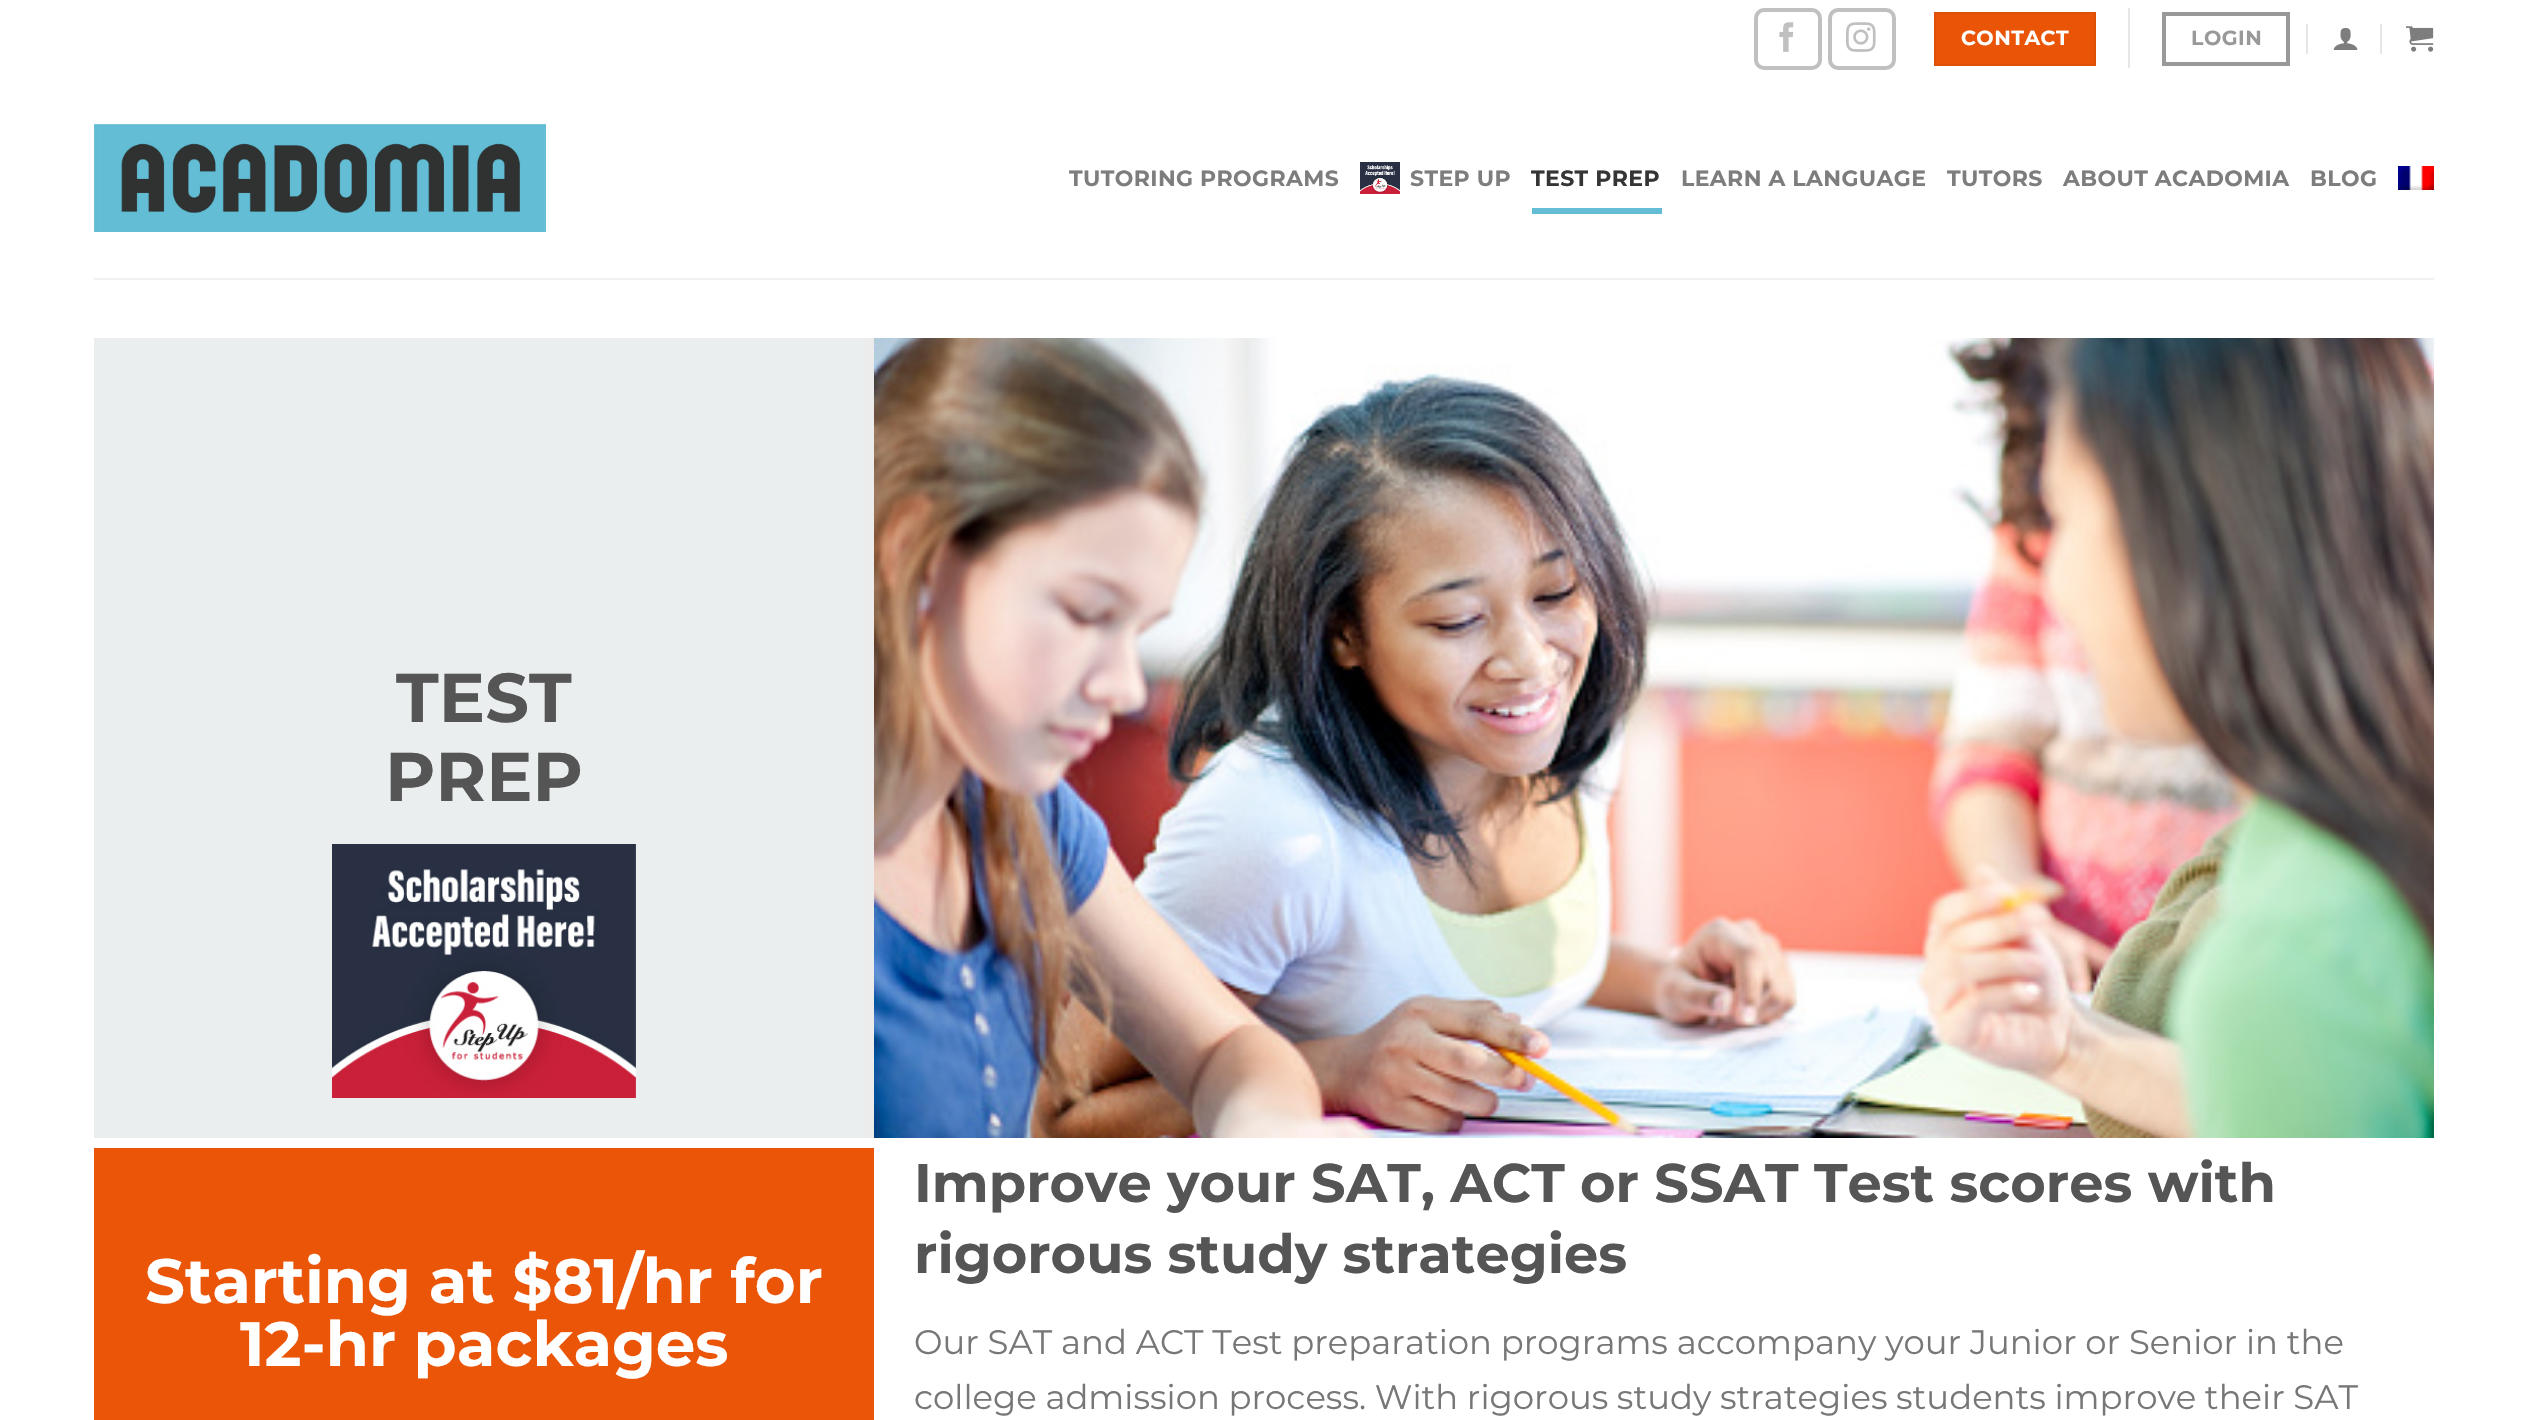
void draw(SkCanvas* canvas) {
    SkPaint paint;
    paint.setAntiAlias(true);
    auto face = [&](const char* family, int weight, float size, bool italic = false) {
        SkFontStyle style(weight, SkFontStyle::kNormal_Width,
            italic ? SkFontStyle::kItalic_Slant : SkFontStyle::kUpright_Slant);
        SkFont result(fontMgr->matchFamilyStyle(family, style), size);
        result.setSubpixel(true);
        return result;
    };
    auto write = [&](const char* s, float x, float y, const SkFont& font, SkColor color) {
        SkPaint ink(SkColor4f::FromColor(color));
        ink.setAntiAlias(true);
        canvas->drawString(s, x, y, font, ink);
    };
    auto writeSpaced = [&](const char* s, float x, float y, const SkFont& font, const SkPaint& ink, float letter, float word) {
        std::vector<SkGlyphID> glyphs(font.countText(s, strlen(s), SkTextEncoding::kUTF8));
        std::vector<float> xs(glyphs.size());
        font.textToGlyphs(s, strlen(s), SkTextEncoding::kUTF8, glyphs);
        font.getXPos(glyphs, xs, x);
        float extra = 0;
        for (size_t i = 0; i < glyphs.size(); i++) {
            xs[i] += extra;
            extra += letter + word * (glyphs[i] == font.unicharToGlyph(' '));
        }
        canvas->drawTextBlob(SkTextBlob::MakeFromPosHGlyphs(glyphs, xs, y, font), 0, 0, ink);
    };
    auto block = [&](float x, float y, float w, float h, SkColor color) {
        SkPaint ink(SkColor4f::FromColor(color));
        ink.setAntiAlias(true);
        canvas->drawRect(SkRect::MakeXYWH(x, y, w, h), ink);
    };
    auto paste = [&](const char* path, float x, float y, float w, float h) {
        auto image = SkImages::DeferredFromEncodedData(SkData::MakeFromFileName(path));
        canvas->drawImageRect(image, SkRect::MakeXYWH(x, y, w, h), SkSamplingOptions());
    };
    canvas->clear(SK_ColorWHITE);
    paint.setStyle(SkPaint::kStroke_Style);
    paint.setStrokeWidth(4);
    paint.setColor(SkColorSetRGB(192, 192, 192));
    canvas->drawRoundRect(SkRect::MakeXYWH(1756, 10, 64, 58), 8, 8, paint);
    paste("pic1.png", 1779, 22, 15, 30);
    canvas->drawRoundRect(SkRect::MakeXYWH(1830, 10, 64, 58), 8, 8, paint);
    paste("pic2.png", 1846, 22, 30, 30);
    paint.setStyle(SkPaint::kFill_Style);
    paint.setColor(SkColorSetRGB(233, 84, 6));
    canvas->drawRect(SkRect::MakeXYWH(1935, 13, 160, 52), paint);
    paint.setStyle(SkPaint::kStroke_Style);
    paint.setStrokeWidth(2);
    paint.setColor(SkColorSetRGB(221, 80, 6));
    canvas->drawRect(SkRect::MakeXYWH(1935, 13, 160, 52), paint);
    auto kFont1 = face("Montserrat", 700, 20.5f);
    paint.setStyle(SkPaint::kFill_Style);
    paint.setColor(SK_ColorWHITE);
    writeSpaced("CONTACT", 1961, 45, kFont1, paint, 0.5f, 0);
    block(2128, 8, 2, 60, SkColorSetRGB(230, 230, 230));
    paint.setStyle(SkPaint::kStroke_Style);
    paint.setStrokeWidth(4);
    paint.setColor(SkColorSetRGB(153, 153, 153));
    canvas->drawRect(SkRect::MakeXYWH(2164, 14, 124, 50), paint);
    paint.setStyle(SkPaint::kFill_Style);
    writeSpaced("LOGIN", 2191, 45, kFont1, paint, 0.5f, 0);
    block(2306, 24, 2, 30, SkColorSetRGB(230, 230, 230));
    paste("pic3.png", 2333, 28, 25, 22);
    block(2380, 24, 2, 30, SkColorSetRGB(230, 230, 230));
    paste("pic4.png", 2406, 26, 28, 26);
    paste("pic5.png", 94, 124, 452, 108);
    auto kFont2 = face("Montserrat", 700, 22);
    paint.setColor(SkColorSetRGB(125, 125, 125));
    writeSpaced("TUTORING PROGRAMS", 1069, 186, kFont2, paint, 0.4f, 0);
    paste("pic6.png", 1360, 162, 40, 32);
    writeSpaced("STEP UP", 1410, 186, kFont2, paint, 0.4f, 0);
    paint.setColor(SkColorSetRGB(53, 53, 53));
    writeSpaced("TEST PREP", 1531, 186, kFont2, paint, 0.4f, 0);
    block(1532, 208, 130, 6, SkColorSetRGB(99, 189, 213));
    paint.setColor(SkColorSetRGB(125, 125, 125));
    writeSpaced("LEARN A LANGUAGE", 1681, 186, kFont2, paint, 0.4f, 0);
    writeSpaced("TUTORS", 1947, 186, kFont2, paint, 0.4f, 0);
    writeSpaced("ABOUT ACADOMIA", 2063, 186, kFont2, paint, 0.4f, 0);
    writeSpaced("BLOG", 2310, 186, kFont2, paint, 0.4f, 0);
    paste("pic7.png", 2398, 166, 36, 24);
    block(94, 278, 2340, 2, SkColorSetRGB(241, 241, 241));
    block(94, 338, 770, 800, SkColorSetRGB(234, 238, 239));
    auto kFont3 = face("Montserrat", 700, 69);
    write("TEST", 396, 722, kFont3, SkColorSetRGB(85, 85, 85));
    write("PREP", 385, 801, kFont3, SkColorSetRGB(85, 85, 85));
    paste("pic8.png", 332, 844, 304, 254);
    block(864, 338, 10, 800, SkColorSetRGB(236, 236, 236));
    paste("pic9.png", 874, 338, 1560, 800);
    block(94, 1148, 780, 272, SkColorSetRGB(235, 85, 8));
    auto kFont4 = face("Montserrat", 700, 62.6f);
    write("Starting at $81/hr for", 145, 1303, kFont4, SK_ColorWHITE);
    write("12-hr packages", 240, 1366, kFont4, SK_ColorWHITE);
    auto kFont5 = face("Montserrat", 700, 54.25f);
    write("Improve your SAT, ACT or SSAT Test scores with", 914, 1202, kFont5, SkColorSetRGB(85, 85, 85));
    write("rigorous study strategies", 914, 1273, kFont5, SkColorSetRGB(85, 85, 85));
    auto kFont6 = face("Montserrat", 400, 33.9f);
    paint.setColor(SkColorSetRGB(119, 119, 119));
    writeSpaced("Our SAT and ACT Test preparation programs accompany your Junior or Senior in the", 914, 1354, kFont6, paint, 0, -0.1f);
    writeSpaced("college admission process. With rigorous study strategies students improve their SAT", 914, 1409, kFont6, paint, 0, -0.25f);
}
